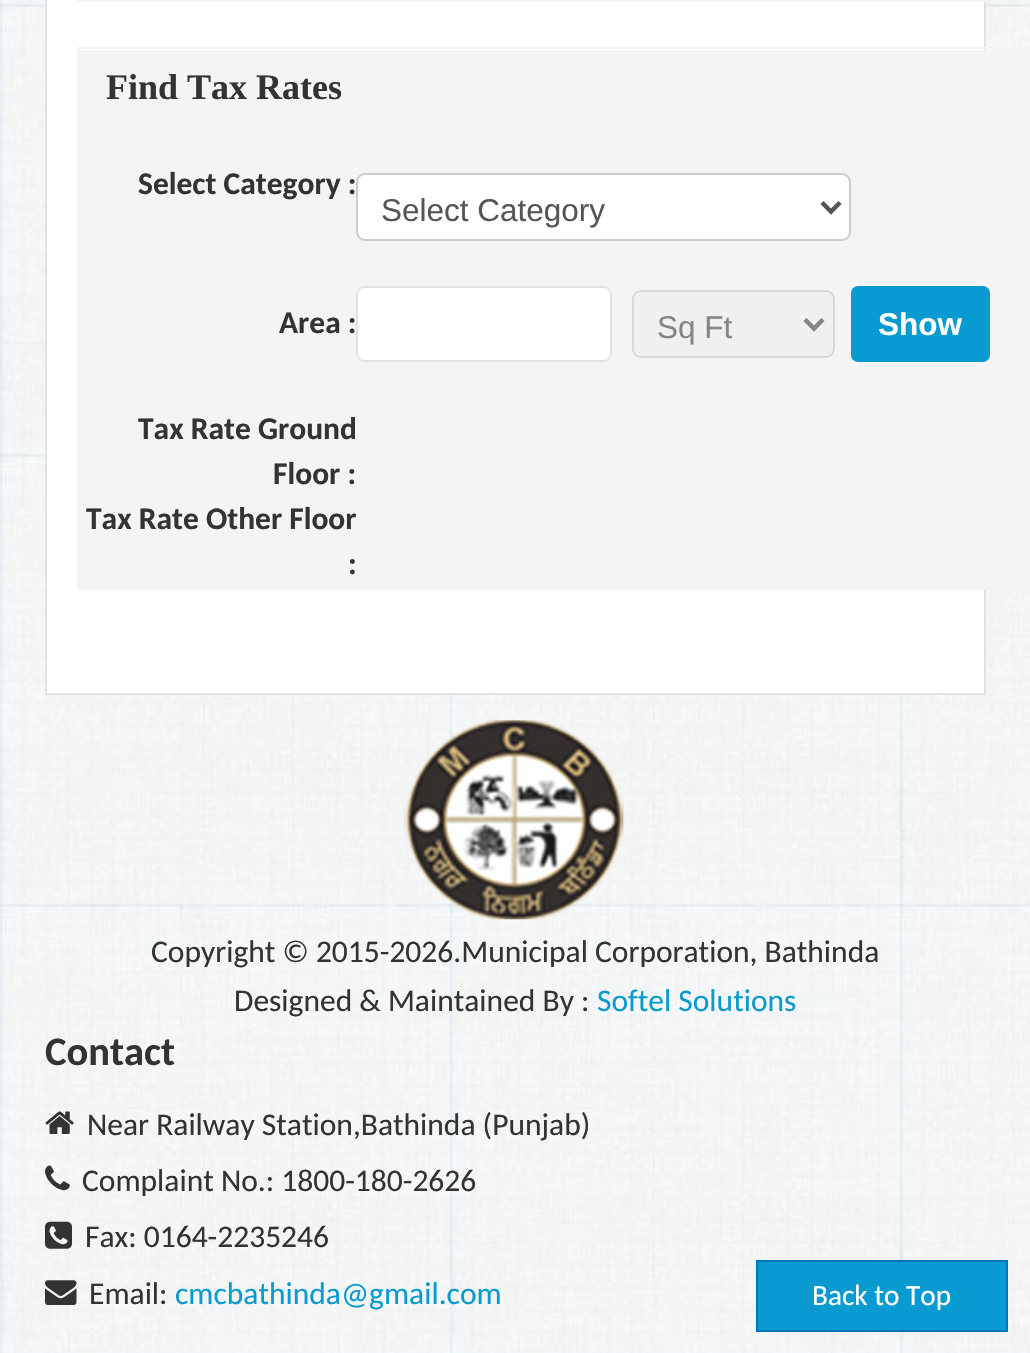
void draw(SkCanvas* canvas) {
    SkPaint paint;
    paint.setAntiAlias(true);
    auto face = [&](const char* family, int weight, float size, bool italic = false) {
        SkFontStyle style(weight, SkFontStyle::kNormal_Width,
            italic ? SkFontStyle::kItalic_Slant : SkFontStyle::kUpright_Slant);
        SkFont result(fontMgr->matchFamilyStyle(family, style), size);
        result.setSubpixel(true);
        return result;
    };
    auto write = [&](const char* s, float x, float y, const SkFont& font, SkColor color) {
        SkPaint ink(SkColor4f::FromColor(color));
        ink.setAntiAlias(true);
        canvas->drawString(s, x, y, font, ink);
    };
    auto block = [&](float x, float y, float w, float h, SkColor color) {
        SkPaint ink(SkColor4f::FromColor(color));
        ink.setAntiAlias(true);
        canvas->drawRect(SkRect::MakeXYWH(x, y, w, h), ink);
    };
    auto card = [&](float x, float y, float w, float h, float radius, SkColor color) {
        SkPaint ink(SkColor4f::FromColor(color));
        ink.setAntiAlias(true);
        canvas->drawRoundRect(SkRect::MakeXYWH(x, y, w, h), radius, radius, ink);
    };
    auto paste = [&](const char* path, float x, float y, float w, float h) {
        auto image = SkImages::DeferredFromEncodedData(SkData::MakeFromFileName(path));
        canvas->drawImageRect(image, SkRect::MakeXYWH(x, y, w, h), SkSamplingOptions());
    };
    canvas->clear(SK_ColorWHITE);
    paste("pic1.png", 0, 0, 1030, 1353);
    paint.setColor(SK_ColorWHITE);
    canvas->drawRect(SkRect::MakeXYWH(46, -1, 939, 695), paint);
    paint.setStyle(SkPaint::kStroke_Style);
    paint.setStrokeWidth(2);
    paint.setColor(SkColorSetRGB(226, 226, 226));
    canvas->drawRect(SkRect::MakeXYWH(46, -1, 939, 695), paint);
    block(77, 0, 953, 2, SkColorSetRGB(244, 244, 244));
    block(77, 47, 953, 2, SkColorSetRGB(244, 244, 244));
    block(77, 47, 2, 543, SkColorSetRGB(244, 244, 244));
    block(79, 50, 951, 78, SkColorSetRGB(244, 244, 244));
    auto kFont1 = face("Liberation Serif", 700, 36);
    write("Find Tax Rates", 106, 99, kFont1, SkColorSetRGB(51, 51, 51));
    block(79, 128, 951, 113, SkColorSetRGB(244, 244, 244));
    auto kFont2 = face("Carlito", 700, 31.5f);
    write("Select Category :", 138, 194, kFont2, SkColorSetRGB(51, 51, 51));
    paint.setStyle(SkPaint::kFill_Style);
    paint.setColor(SK_ColorWHITE);
    canvas->drawRoundRect(SkRect::MakeXYWH(357, 174, 493, 66), 8, 8, paint);
    paint.setStyle(SkPaint::kStroke_Style);
    paint.setColor(SkColorSetRGB(204, 204, 204));
    canvas->drawRoundRect(SkRect::MakeXYWH(357, 174, 493, 66), 8, 8, paint);
    paint.setStrokeWidth(4.5f);
    paint.setColor(SkColorSetRGB(85, 85, 85));
    canvas->drawPath(SkPathBuilder().moveTo(822, 202.5f).lineTo(831, 211.5f).lineTo(840, 202.5f).detach(), paint);
    auto kFont3 = face("Liberation Sans", 400, 31.5f);
    write("Select Category", 381, 221, kFont3, SkColorSetRGB(85, 85, 85));
    block(79, 241, 951, 166, SkColorSetRGB(244, 244, 244));
    write("Area :", 279, 333, kFont2, SkColorSetRGB(51, 51, 51));
    paint.setStyle(SkPaint::kFill_Style);
    paint.setColor(SK_ColorWHITE);
    canvas->drawRoundRect(SkRect::MakeXYWH(357, 287, 254, 74), 8, 8, paint);
    paint.setStyle(SkPaint::kStroke_Style);
    paint.setStrokeWidth(2);
    paint.setColor(SkColorSetRGB(226, 226, 226));
    canvas->drawRoundRect(SkRect::MakeXYWH(357, 287, 254, 74), 8, 8, paint);
    paint.setStyle(SkPaint::kFill_Style);
    paint.setColor(SkColorSetRGB(240, 240, 240));
    canvas->drawRoundRect(SkRect::MakeXYWH(633, 291, 201, 66), 8, 8, paint);
    paint.setStyle(SkPaint::kStroke_Style);
    paint.setColor(SkColorSetRGB(216, 216, 216));
    canvas->drawRoundRect(SkRect::MakeXYWH(633, 291, 201, 66), 8, 8, paint);
    paint.setStrokeWidth(4.5f);
    paint.setColor(SkColorSetRGB(133, 133, 133));
    canvas->drawPath(SkPathBuilder().moveTo(805, 319.5f).lineTo(814, 328.5f).lineTo(823, 319.5f).detach(), paint);
    write("Sq Ft", 657, 338, kFont3, SkColorSetRGB(133, 133, 133));
    card(851, 286, 139, 76, 7, SkColorSetRGB(9, 154, 209));
    auto kFont4 = face("Liberation Sans", 700, 31.5f);
    write("Show", 878, 335, kFont4, SK_ColorWHITE);
    block(79, 407, 772, 90, SkColorSetRGB(244, 244, 244));
    write("Tax Rate Ground", 138, 439, kFont2, SkColorSetRGB(51, 51, 51));
    write("Floor :", 273, 484, kFont2, SkColorSetRGB(51, 51, 51));
    block(851, 407, 179, 183, SkColorSetRGB(244, 244, 244));
    block(79, 497, 772, 93, SkColorSetRGB(244, 244, 244));
    write("Tax Rate Other Floor", 86, 529, kFont2, SkColorSetRGB(51, 51, 51));
    write(":", 348, 574, kFont2, SkColorSetRGB(51, 51, 51));
    paste("pic2.png", 404, 720, 220, 200);
    auto kFont5 = face("Carlito", 400, 31.5f);
    write("Copyright © 2015-2026.Municipal Corporation, Bathinda", 151, 962, kFont5, SkColorSetRGB(51, 51, 51));
    write("Designed & Maintained By :", 234, 1011, kFont5, SkColorSetRGB(51, 51, 51));
    write("Softel Solutions", 597, 1011, kFont5, SkColorSetRGB(9, 154, 209));
    auto kFont6 = face("Carlito", 700, 40.5f);
    write("Contact", 45, 1065, kFont6, SkColorSetRGB(51, 51, 51));
    paste("pic3.png", 45, 1111, 29, 23);
    write("Near Railway Station,Bathinda (Punjab)", 87, 1135, kFont5, SkColorSetRGB(51, 51, 51));
    paste("pic4.png", 45, 1165, 25, 26);
    write("Complaint No.: 1800-180-2626", 82, 1191, kFont5, SkColorSetRGB(51, 51, 51));
    paste("pic5.png", 45, 1221, 27, 28);
    write("Fax: 0164-2235246", 85, 1247, kFont5, SkColorSetRGB(51, 51, 51));
    paste("pic6.png", 45, 1280, 32, 25);
    write("Email:", 89, 1304, kFont5, SkColorSetRGB(51, 51, 51));
    write("cmcbathinda@gmail.com", 175, 1304, kFont5, SkColorSetRGB(9, 154, 209));
    paint.setStyle(SkPaint::kFill_Style);
    paint.setColor(SkColorSetRGB(9, 154, 209));
    canvas->drawRect(SkRect::MakeXYWH(757, 1261, 250, 70), paint);
    paint.setStyle(SkPaint::kStroke_Style);
    paint.setStrokeWidth(2);
    paint.setColor(SkColorSetRGB(0, 117, 187));
    canvas->drawRect(SkRect::MakeXYWH(757, 1261, 250, 70), paint);
    auto kFont7 = face("Carlito", 400, 29.25f);
    write("Back to Top", 812, 1305, kFont7, SK_ColorWHITE);
}
